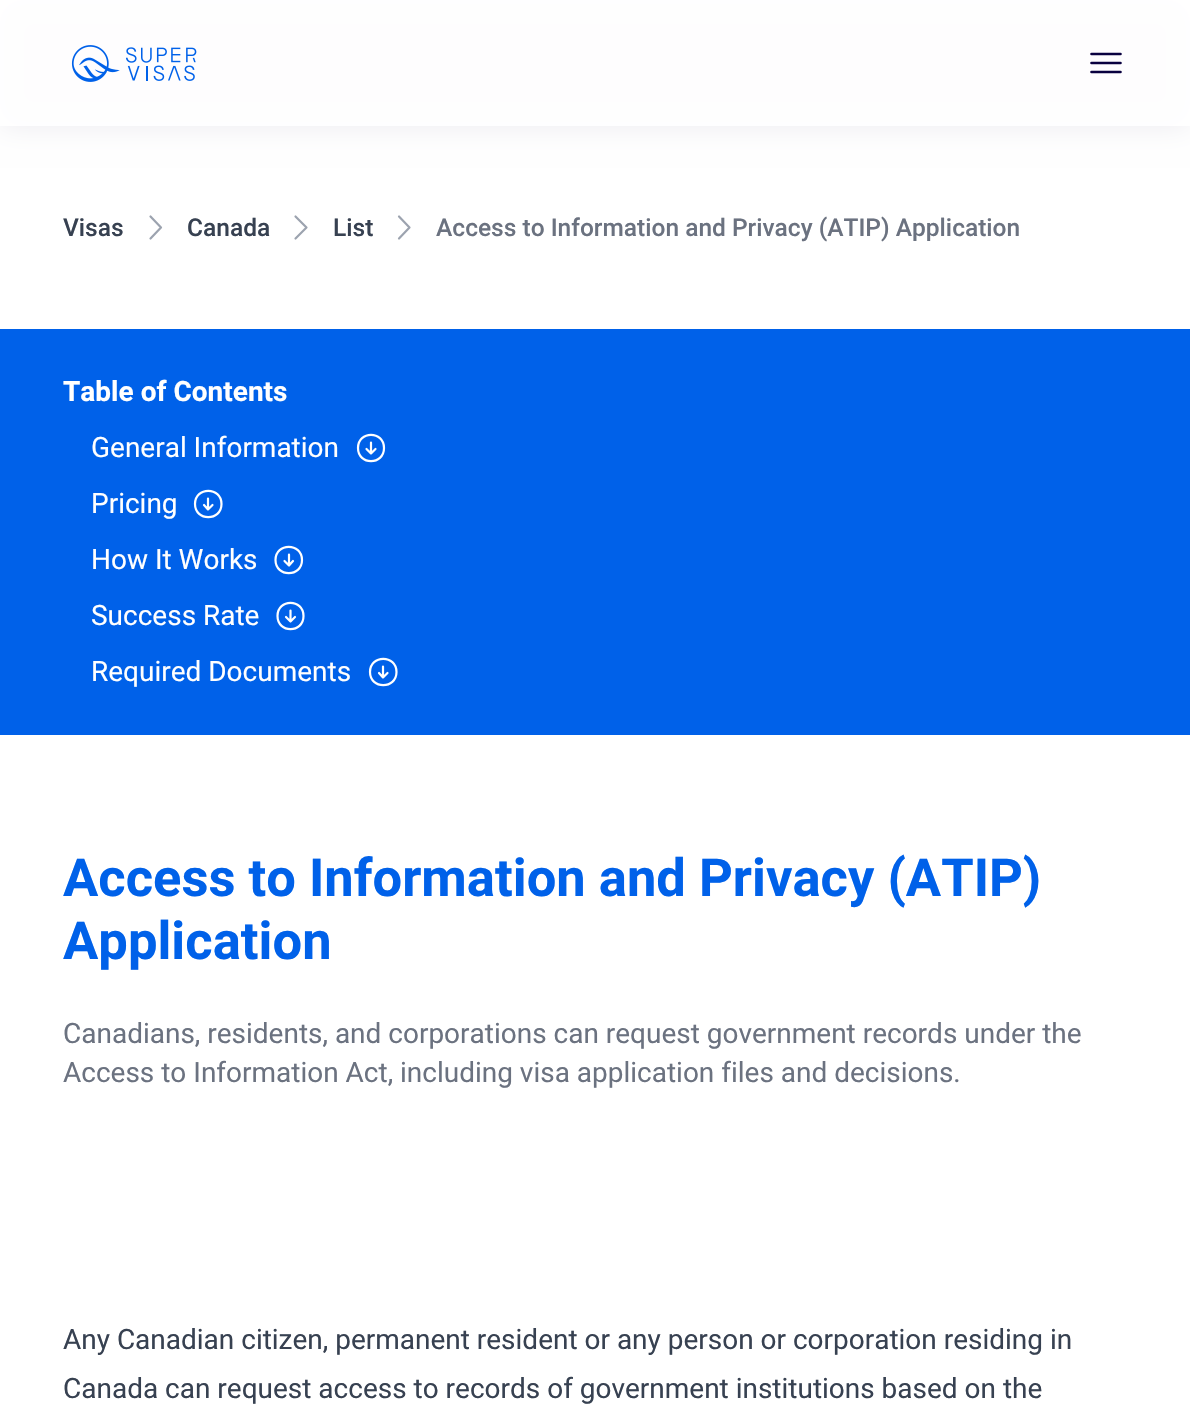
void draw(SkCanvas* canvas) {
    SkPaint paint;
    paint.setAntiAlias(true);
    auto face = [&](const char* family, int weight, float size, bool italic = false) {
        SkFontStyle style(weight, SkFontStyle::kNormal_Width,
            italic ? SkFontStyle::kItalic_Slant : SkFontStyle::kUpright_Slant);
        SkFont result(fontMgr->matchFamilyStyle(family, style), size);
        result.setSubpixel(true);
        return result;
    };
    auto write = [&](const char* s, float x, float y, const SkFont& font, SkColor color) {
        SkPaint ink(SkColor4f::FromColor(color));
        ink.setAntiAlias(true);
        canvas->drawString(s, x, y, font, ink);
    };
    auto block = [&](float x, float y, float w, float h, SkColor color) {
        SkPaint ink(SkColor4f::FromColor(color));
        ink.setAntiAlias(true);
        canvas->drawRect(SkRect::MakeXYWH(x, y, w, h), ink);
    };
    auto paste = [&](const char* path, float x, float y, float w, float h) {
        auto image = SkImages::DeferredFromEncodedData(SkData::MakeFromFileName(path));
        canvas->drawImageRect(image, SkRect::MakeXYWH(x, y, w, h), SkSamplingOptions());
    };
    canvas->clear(SK_ColorWHITE);
    paint.setColor(SkColorSetRGB(236, 235, 240));
    paint.setMaskFilter(SkMaskFilter::MakeBlur(kNormal_SkBlurStyle, 14));
    canvas->drawRect(SkRect::MakeXYWH(0, 0, 1190, 126), paint);
    paint.setMaskFilter(nullptr);
    block(0, 0, 1190, 126, SkColorSetARGB(230, 255, 255, 255));
    paste("pic1.png", 71, 45, 126, 37);
    paint.setStyle(SkPaint::kStroke_Style);
    paint.setStrokeWidth(2.6f);
    paint.setStrokeCap(SkPaint::kRound_Cap);
    paint.setStrokeJoin(SkPaint::kRound_Join);
    paint.setColor(SkColorSetRGB(9, 0, 63));
    canvas->drawPath(SkPathBuilder().moveTo(1091.5f, 54).lineTo(1120.5f, 54).moveTo(1091.5f, 63).lineTo(1120.5f, 63).moveTo(1091.5f, 72).lineTo(1120.5f, 72).detach(), paint);
    auto kFont1 = face("Roboto", 500, 24.5f);
    write("Visas", 63, 236, kFont1, SkColorSetRGB(55, 65, 81));
    paint.setStrokeWidth(2.2f);
    paint.setColor(SkColorSetRGB(156, 163, 175));
    canvas->drawPath(SkPathBuilder().moveTo(150.5f, 216.5f).lineTo(161, 227.5f).lineTo(150.5f, 238.5f).detach(), paint);
    write("Canada", 187, 236, kFont1, SkColorSetRGB(55, 65, 81));
    canvas->drawPath(SkPathBuilder().moveTo(295.5f, 216.5f).lineTo(306.5f, 227.5f).lineTo(295.5f, 238.5f).detach(), paint);
    write("List", 333, 236, kFont1, SkColorSetRGB(55, 65, 81));
    canvas->drawPath(SkPathBuilder().moveTo(399, 216.5f).lineTo(409.5f, 227.5f).lineTo(399, 238.5f).detach(), paint);
    write("Access to Information and Privacy (ATIP) Application", 436, 236, kFont1, SkColorSetRGB(107, 114, 128));
    block(0, 329, 1190, 406, SkColorSetRGB(0, 97, 233));
    auto kFont2 = face("Roboto", 700, 28);
    write("Table of Contents", 63, 401, kFont2, SK_ColorWHITE);
    auto kFont3 = face("Roboto", 400, 28);
    write("General Information", 91, 457, kFont3, SK_ColorWHITE);
    paint.setColor(SK_ColorWHITE);
    canvas->drawPath(SkPathBuilder().moveTo(366.5f, 449).lineTo(371, 453.5f).moveTo(371, 453.5f).lineTo(375.5f, 449).moveTo(371, 453.5f).lineTo(371, 442.5f).moveTo(384, 448).cubicTo(384, 465.5f, 358, 465.5f, 358, 448).cubicTo(358, 430.5f, 384, 430.5f, 384, 448).close().detach(), paint);
    write("Pricing", 91, 513, kFont3, SK_ColorWHITE);
    canvas->drawPath(SkPathBuilder().moveTo(204, 505).lineTo(208, 509.5f).moveTo(208, 509.5f).lineTo(212.5f, 505).moveTo(208, 509.5f).lineTo(208, 498.5f).moveTo(221.5f, 504).cubicTo(221.5f, 521.5f, 195, 521.5f, 195, 504).cubicTo(195, 486.5f, 221.5f, 486.5f, 221.5f, 504).close().detach(), paint);
    write("How It Works", 91, 569, kFont3, SK_ColorWHITE);
    canvas->drawPath(SkPathBuilder().moveTo(284.5f, 561).lineTo(289, 565.5f).moveTo(289, 565.5f).lineTo(293, 561).moveTo(289, 565.5f).lineTo(289, 554.5f).moveTo(302, 560).cubicTo(302, 577.5f, 275.5f, 577.5f, 275.5f, 560).cubicTo(275.5f, 542.5f, 302, 542.5f, 302, 560).close().detach(), paint);
    write("Success Rate", 91, 625, kFont3, SK_ColorWHITE);
    canvas->drawPath(SkPathBuilder().moveTo(286, 617).lineTo(290.5f, 621.5f).moveTo(290.5f, 621.5f).lineTo(295, 617).moveTo(290.5f, 621.5f).lineTo(290.5f, 610.5f).moveTo(303.5f, 616).cubicTo(303.5f, 633.5f, 277.5f, 633.5f, 277.5f, 616).cubicTo(277.5f, 598.5f, 303.5f, 598.5f, 303.5f, 616).close().detach(), paint);
    write("Required Documents", 91, 681, kFont3, SK_ColorWHITE);
    canvas->drawPath(SkPathBuilder().moveTo(379, 673).lineTo(383, 677.5f).moveTo(383, 677.5f).lineTo(387.5f, 673).moveTo(383, 677.5f).lineTo(383, 666.5f).moveTo(396.5f, 672).cubicTo(396.5f, 689.5f, 370, 689.5f, 370, 672).cubicTo(370, 654.5f, 396.5f, 654.5f, 396.5f, 672).close().detach(), paint);
    auto kFont4 = face("Roboto", 700, 52.5f);
    write("Access to Information and Privacy (ATIP)", 63, 896, kFont4, SkColorSetRGB(0, 97, 233));
    write("Application", 63, 959, kFont4, SkColorSetRGB(0, 97, 233));
    write("Canadians, residents, and corporations can request government records under the", 63, 1043, kFont3, SkColorSetRGB(107, 114, 128));
    write("Access to Information Act, including visa application files and decisions.", 63, 1082, kFont3, SkColorSetRGB(107, 114, 128));
    write("Any Canadian citizen, permanent resident or any person or corporation residing in", 63, 1349, kFont3, SkColorSetRGB(55, 65, 81));
    write("Canada can request access to records of government institutions based on the", 63, 1398, kFont3, SkColorSetRGB(55, 65, 81));
}
